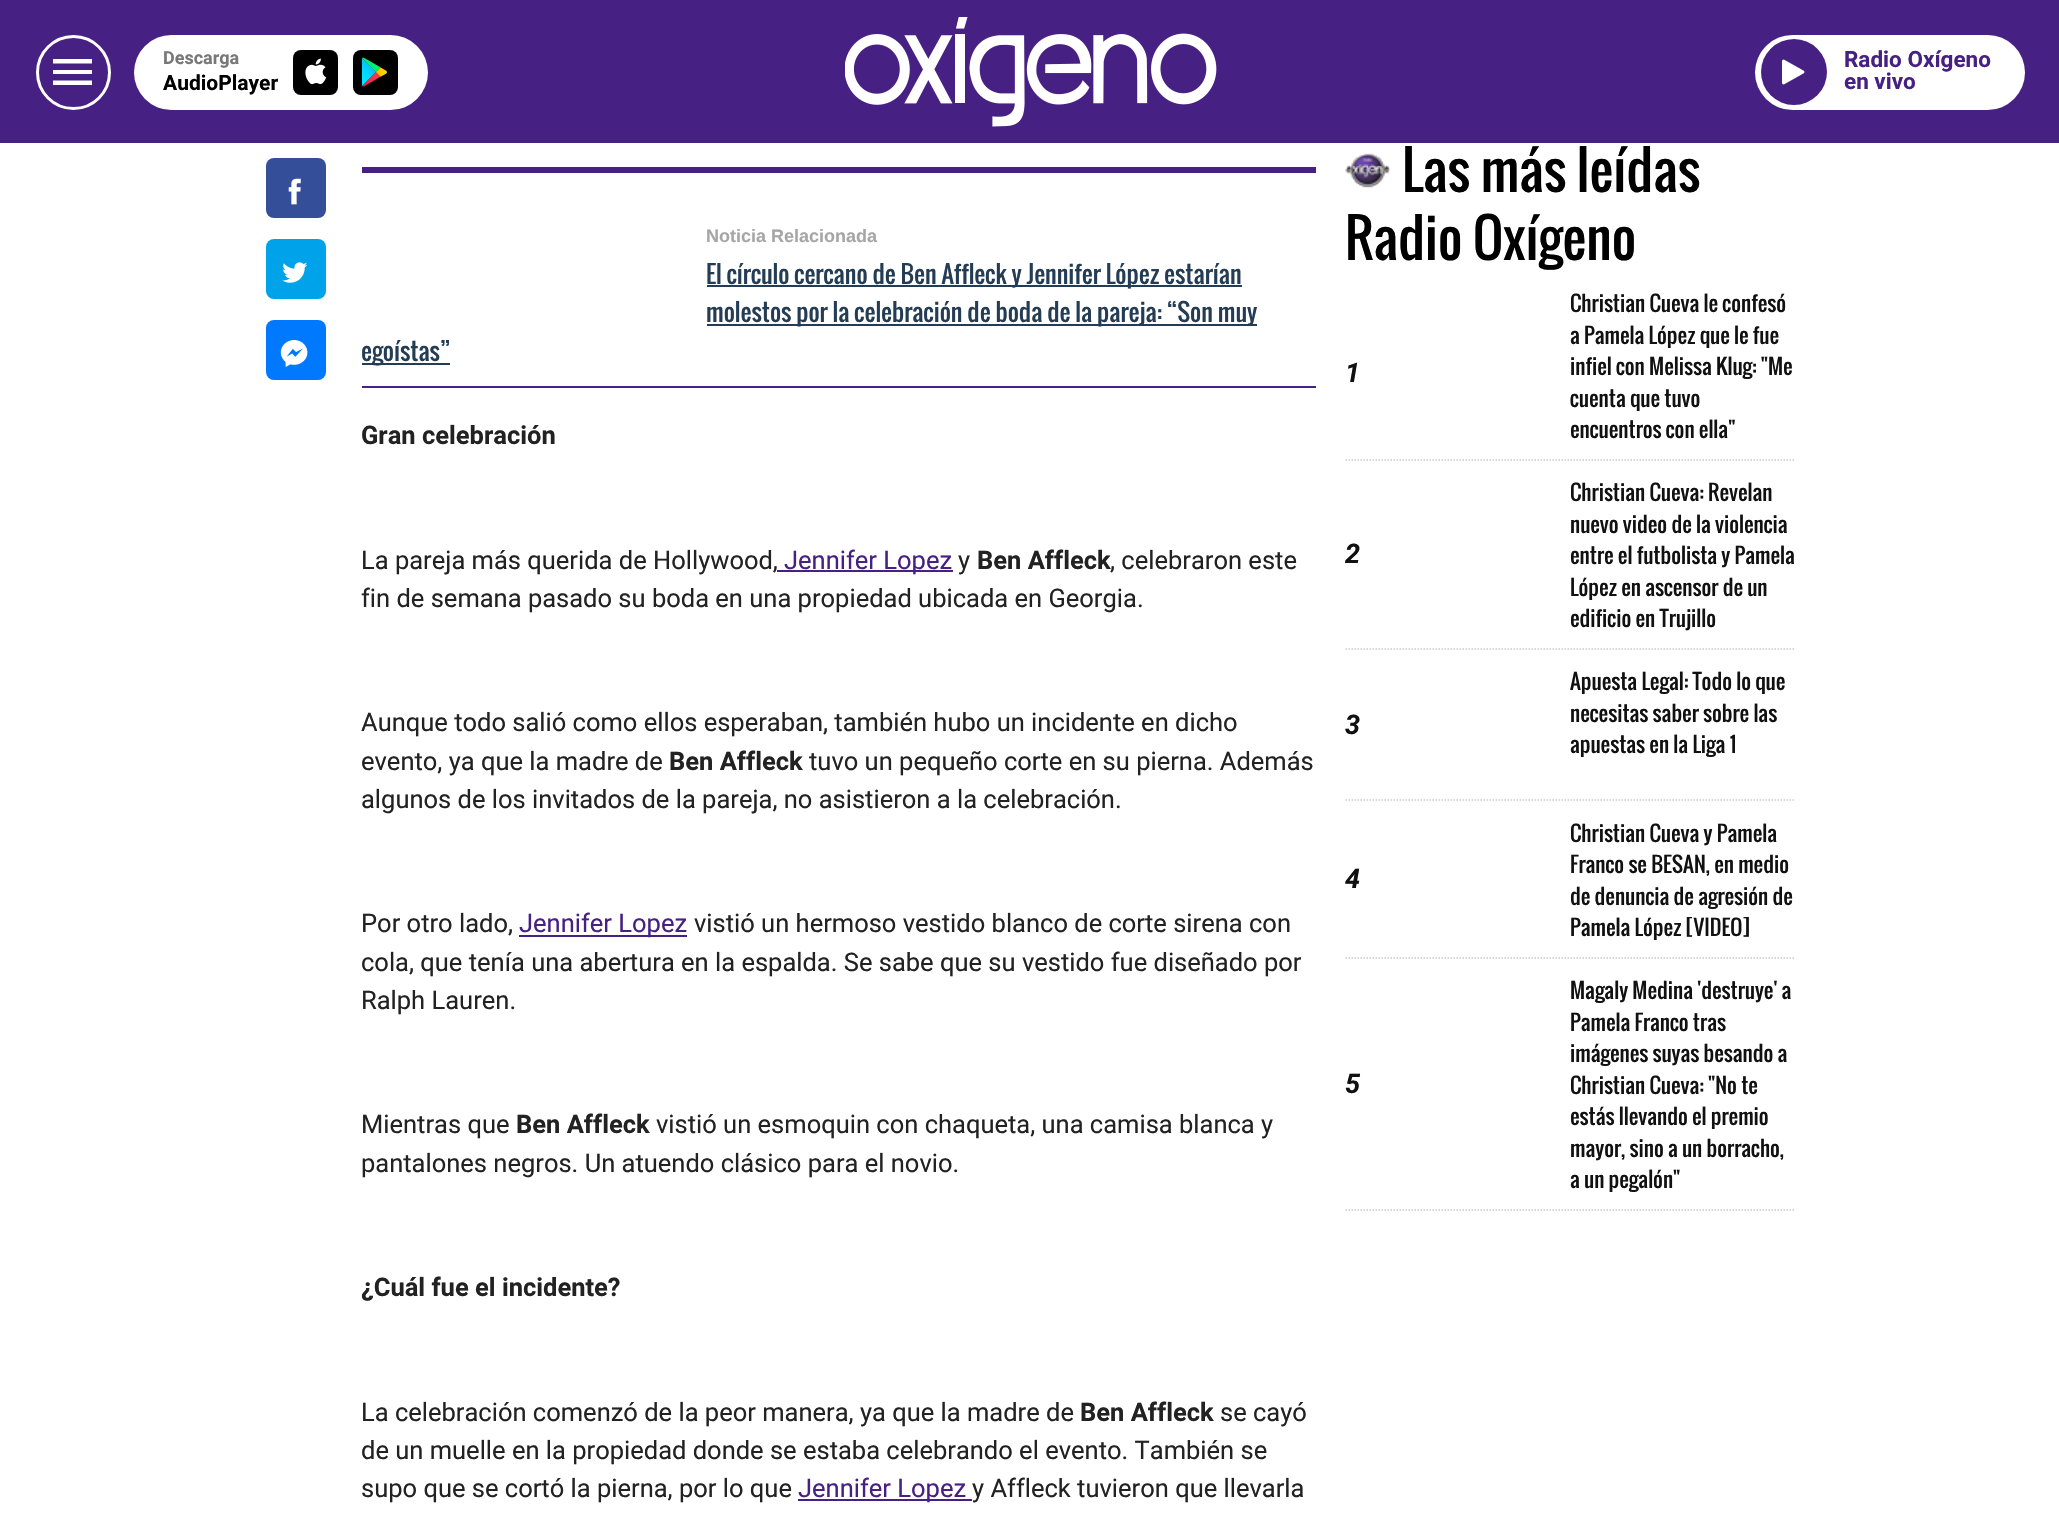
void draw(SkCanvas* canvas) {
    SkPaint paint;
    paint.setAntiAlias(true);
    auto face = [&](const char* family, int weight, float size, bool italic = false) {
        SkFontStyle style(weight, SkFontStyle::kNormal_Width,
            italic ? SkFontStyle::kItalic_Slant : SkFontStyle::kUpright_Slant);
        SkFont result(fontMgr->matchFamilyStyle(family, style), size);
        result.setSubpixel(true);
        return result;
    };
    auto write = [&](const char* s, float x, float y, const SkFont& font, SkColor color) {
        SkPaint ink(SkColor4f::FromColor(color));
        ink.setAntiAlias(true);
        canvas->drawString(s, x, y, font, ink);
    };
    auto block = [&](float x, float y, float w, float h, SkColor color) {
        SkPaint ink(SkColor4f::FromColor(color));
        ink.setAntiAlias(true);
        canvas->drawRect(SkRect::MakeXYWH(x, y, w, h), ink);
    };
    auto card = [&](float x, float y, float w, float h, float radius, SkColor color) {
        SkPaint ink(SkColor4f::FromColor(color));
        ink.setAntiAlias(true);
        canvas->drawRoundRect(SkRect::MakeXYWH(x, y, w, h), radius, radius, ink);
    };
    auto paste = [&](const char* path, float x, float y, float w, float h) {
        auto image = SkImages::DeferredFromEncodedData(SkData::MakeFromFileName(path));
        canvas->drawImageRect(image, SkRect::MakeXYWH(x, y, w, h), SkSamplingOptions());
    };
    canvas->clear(SK_ColorWHITE);
    block(0, 0, 2059, 143, SkColorSetRGB(71, 32, 132));
    paint.setStyle(SkPaint::kStroke_Style);
    paint.setStrokeWidth(3);
    paint.setColor(SK_ColorWHITE);
    canvas->drawCircle(73.5f, 72.5f, 36, paint);
    paint.setStyle(SkPaint::kFill_Style);
    canvas->drawPath(SkPathBuilder().moveTo(53, 59).lineTo(92, 59).lineTo(92, 63.5f).lineTo(53, 63.5f).close().moveTo(53, 70).lineTo(92, 70).lineTo(92, 74).lineTo(53, 74).close().moveTo(53, 80.5f).lineTo(92, 80.5f).lineTo(92, 85).lineTo(53, 85).close().detach(), paint);
    card(134, 35, 294, 75, 37.5f, SK_ColorWHITE);
    auto kFont1 = face("Roboto", 700, 18);
    write("Descarga", 163, 64, kFont1, SkColorSetRGB(120, 120, 120));
    auto kFont2 = face("Roboto", 700, 21);
    write("AudioPlayer", 163, 90, kFont2, SK_ColorBLACK);
    card(293, 50, 45, 45, 8, SK_ColorBLACK);
    paste("pic1.png", 305, 58, 22, 27);
    card(353, 50, 45, 45, 8, SK_ColorBLACK);
    paste("pic2.png", 362, 57, 25, 30);
    paste("pic3.png", 845, 17, 372, 110);
    card(1755, 35, 270, 75, 37.5f, SK_ColorWHITE);
    paint.setColor(SkColorSetRGB(71, 32, 132));
    canvas->drawCircle(1794, 72, 33, paint);
    paste("pic4.png", 1782, 59, 23, 26);
    auto kFont3 = face("Roboto", 700, 22.5f);
    write("Radio Oxígeno", 1844, 67, kFont3, SkColorSetRGB(71, 32, 132));
    write("en vivo", 1844, 89, kFont3, SkColorSetRGB(71, 32, 132));
    card(266, 158, 60, 60, 8, SkColorSetRGB(53, 78, 154));
    paste("pic5.png", 288, 178, 13, 27);
    card(266, 239, 60, 60, 8, SkColorSetRGB(0, 163, 234));
    paste("pic6.png", 282, 262, 26, 21);
    card(266, 320, 60, 60, 8, SkColorSetRGB(0, 121, 255));
    paste("pic7.png", 280, 340, 28, 27);
    block(362, 167, 954, 6, SkColorSetRGB(71, 32, 132));
    block(362, 386, 954, 2, SkColorSetRGB(71, 32, 132));
    auto kFont4 = face("Liberation Sans", 700, 18);
    write("Noticia Relacionada", 706, 242, kFont4, SkColorSetRGB(166, 166, 166));
    block(707, 285, 535, 2, SkColorSetRGB(36, 61, 85));
    auto kFont5 = face("Oswald", 400, 24);
    write("El círculo cercano de Ben Affleck y Jennifer López estarían", 706, 284, kFont5, SkColorSetRGB(36, 61, 85));
    block(707, 324, 550, 2, SkColorSetRGB(36, 61, 85));
    write("molestos por la celebración de boda de la pareja: “Son muy", 706, 322, kFont5, SkColorSetRGB(36, 61, 85));
    block(362, 363, 88, 2, SkColorSetRGB(36, 61, 85));
    canvas->save();
    canvas->clipRect(SkRect::MakeXYWH(362, 173, 954, 213));
    write("egoístas”", 361, 361, kFont5, SkColorSetRGB(36, 61, 85));
    canvas->restore();
    auto kFont6 = face("Roboto", 700, 25.5f);
    write("Gran celebración", 361, 444, kFont6, SkColorSetRGB(34, 34, 34));
    auto kFont7 = face("Roboto", 400, 25.5f);
    write("La pareja más querida de Hollywood,", 361, 569, kFont7, SkColorSetRGB(34, 34, 34));
    block(777, 570, 176, 2, SkColorSetRGB(71, 32, 132));
    write("Jennifer Lopez", 784, 569, kFont7, SkColorSetRGB(71, 32, 132));
    write("y", 958, 569, kFont7, SkColorSetRGB(34, 34, 34));
    write("Ben Affleck", 977, 569, kFont6, SkColorSetRGB(34, 34, 34));
    write(", celebraron este", 1110, 569, kFont7, SkColorSetRGB(34, 34, 34));
    write("fin de semana pasado su boda en una propiedad ubicada en Georgia.", 361, 607, kFont7, SkColorSetRGB(34, 34, 34));
    write("Aunque todo salió como ellos esperaban, también hubo un incidente en dicho", 361, 731, kFont7, SkColorSetRGB(34, 34, 34));
    write("evento, ya que la madre de", 361, 770, kFont7, SkColorSetRGB(34, 34, 34));
    write("Ben Affleck", 669, 770, kFont6, SkColorSetRGB(34, 34, 34));
    write("tuvo un pequeño corte en su pierna. Además", 809, 770, kFont7, SkColorSetRGB(34, 34, 34));
    write("algunos de los invitados de la pareja, no asistieron a la celebración.", 361, 808, kFont7, SkColorSetRGB(34, 34, 34));
    write("Por otro lado,", 361, 932, kFont7, SkColorSetRGB(34, 34, 34));
    block(519, 935, 168, 2, SkColorSetRGB(71, 32, 132));
    write("Jennifer Lopez", 519, 932, kFont7, SkColorSetRGB(71, 32, 132));
    write("vistió un hermoso vestido blanco de corte sirena con", 694, 932, kFont7, SkColorSetRGB(34, 34, 34));
    write("cola, que tenía una abertura en la espalda. Se sabe que su vestido fue diseñado por", 361, 971, kFont7, SkColorSetRGB(34, 34, 34));
    write("Ralph Lauren.", 361, 1009, kFont7, SkColorSetRGB(34, 34, 34));
    write("Mientras que", 361, 1133, kFont7, SkColorSetRGB(34, 34, 34));
    write("Ben Affleck", 516, 1133, kFont6, SkColorSetRGB(34, 34, 34));
    write("vistió un esmoquin con chaqueta, una camisa blanca y", 656, 1133, kFont7, SkColorSetRGB(34, 34, 34));
    write("pantalones negros. Un atuendo clásico para el novio.", 361, 1172, kFont7, SkColorSetRGB(34, 34, 34));
    write("¿Cuál fue el incidente?", 361, 1296, kFont6, SkColorSetRGB(34, 34, 34));
    write("La celebración comenzó de la peor manera, ya que la madre de", 361, 1421, kFont7, SkColorSetRGB(34, 34, 34));
    write("Ben Affleck", 1080, 1421, kFont6, SkColorSetRGB(34, 34, 34));
    write("se cayó", 1220, 1421, kFont7, SkColorSetRGB(34, 34, 34));
    write("de un muelle en la propiedad donde se estaba celebrando el evento. También se", 361, 1459, kFont7, SkColorSetRGB(34, 34, 34));
    write("supo que se cortó la pierna, por lo que", 361, 1497, kFont7, SkColorSetRGB(34, 34, 34));
    block(798, 1499, 174, 2, SkColorSetRGB(71, 32, 132));
    write("Jennifer Lopez", 798, 1497, kFont7, SkColorSetRGB(71, 32, 132));
    write("y Affleck tuvieron que llevarla", 972, 1497, kFont7, SkColorSetRGB(34, 34, 34));
    paste("pic8.png", 1345, 153, 45, 35);
    auto kFont8 = face("Oswald", 400, 52.5f);
    write("Las más leídas", 1402, 192, kFont8, SK_ColorBLACK);
    write("Radio Oxígeno", 1345, 260, kFont8, SK_ColorBLACK);
    paint.setStyle(SkPaint::kStroke_Style);
    paint.setStrokeWidth(1.5f);
    paint.setColor(SkColorSetRGB(204, 204, 204));
    paint.setPathEffect(SkDashPathEffect::Make({{1.5f, 1.5f}}, 0));
    canvas->drawPath(SkPathBuilder().moveTo(1345.5f, 460).lineTo(1795.5f, 460).detach(), paint);
    paint.setPathEffect(nullptr);
    auto kFont9 = face("Roboto", 700, 27, true);
    write("1", 1345, 382, kFont9, SkColorSetRGB(17, 17, 17));
    auto kFont10 = face("Oswald", 400, 21);
    write("Christian Cueva le confesó", 1570, 312, kFont10, SkColorSetRGB(17, 17, 17));
    write("a Pamela López que le fue", 1570, 344, kFont10, SkColorSetRGB(17, 17, 17));
    write("infiel con Melissa Klug: \"Me", 1570, 375, kFont10, SkColorSetRGB(17, 17, 17));
    write("cuenta que tuvo", 1570, 407, kFont10, SkColorSetRGB(17, 17, 17));
    write("encuentros con ella\"", 1570, 438, kFont10, SkColorSetRGB(17, 17, 17));
    paint.setPathEffect(SkDashPathEffect::Make({{1.5f, 1.5f}}, 0));
    canvas->drawPath(SkPathBuilder().moveTo(1345.5f, 649).lineTo(1795.5f, 649).detach(), paint);
    paint.setPathEffect(nullptr);
    write("2", 1345, 563, kFont9, SkColorSetRGB(17, 17, 17));
    write("Christian Cueva: Revelan", 1570, 501, kFont10, SkColorSetRGB(17, 17, 17));
    write("nuevo video de la violencia", 1570, 533, kFont10, SkColorSetRGB(17, 17, 17));
    write("entre el futbolista y Pamela", 1570, 564, kFont10, SkColorSetRGB(17, 17, 17));
    write("López en ascensor de un", 1570, 596, kFont10, SkColorSetRGB(17, 17, 17));
    write("edificio en Trujillo", 1570, 627, kFont10, SkColorSetRGB(17, 17, 17));
    paint.setPathEffect(SkDashPathEffect::Make({{1.5f, 1.5f}}, 0));
    canvas->drawPath(SkPathBuilder().moveTo(1345.5f, 800).lineTo(1795.5f, 800).detach(), paint);
    paint.setPathEffect(nullptr);
    write("3", 1345, 734, kFont9, SkColorSetRGB(17, 17, 17));
    write("Apuesta Legal: Todo lo que", 1570, 690, kFont10, SkColorSetRGB(17, 17, 17));
    write("necesitas saber sobre las", 1570, 722, kFont10, SkColorSetRGB(17, 17, 17));
    write("apuestas en la Liga 1", 1570, 753, kFont10, SkColorSetRGB(17, 17, 17));
    paint.setPathEffect(SkDashPathEffect::Make({{1.5f, 1.5f}}, 0));
    canvas->drawPath(SkPathBuilder().moveTo(1345.5f, 958).lineTo(1795.5f, 958).detach(), paint);
    paint.setPathEffect(nullptr);
    write("4", 1345, 888, kFont9, SkColorSetRGB(17, 17, 17));
    write("Christian Cueva y Pamela", 1570, 842, kFont10, SkColorSetRGB(17, 17, 17));
    write("Franco se BESAN, en medio", 1570, 873, kFont10, SkColorSetRGB(17, 17, 17));
    write("de denuncia de agresión de", 1570, 905, kFont10, SkColorSetRGB(17, 17, 17));
    write("Pamela López [VIDEO]", 1570, 936, kFont10, SkColorSetRGB(17, 17, 17));
    paint.setPathEffect(SkDashPathEffect::Make({{1.5f, 1.5f}}, 0));
    canvas->drawPath(SkPathBuilder().moveTo(1345.5f, 1210).lineTo(1795.5f, 1210).detach(), paint);
    paint.setPathEffect(nullptr);
    write("5", 1345, 1093, kFont9, SkColorSetRGB(17, 17, 17));
    write("Magaly Medina 'destruye' a", 1570, 999, kFont10, SkColorSetRGB(17, 17, 17));
    write("Pamela Franco tras", 1570, 1031, kFont10, SkColorSetRGB(17, 17, 17));
    write("imágenes suyas besando a", 1570, 1062, kFont10, SkColorSetRGB(17, 17, 17));
    write("Christian Cueva: \"No te", 1570, 1094, kFont10, SkColorSetRGB(17, 17, 17));
    write("estás llevando el premio", 1570, 1125, kFont10, SkColorSetRGB(17, 17, 17));
    write("mayor, sino a un borracho,", 1570, 1157, kFont10, SkColorSetRGB(17, 17, 17));
    write("a un pegalón\"", 1570, 1188, kFont10, SkColorSetRGB(17, 17, 17));
}
